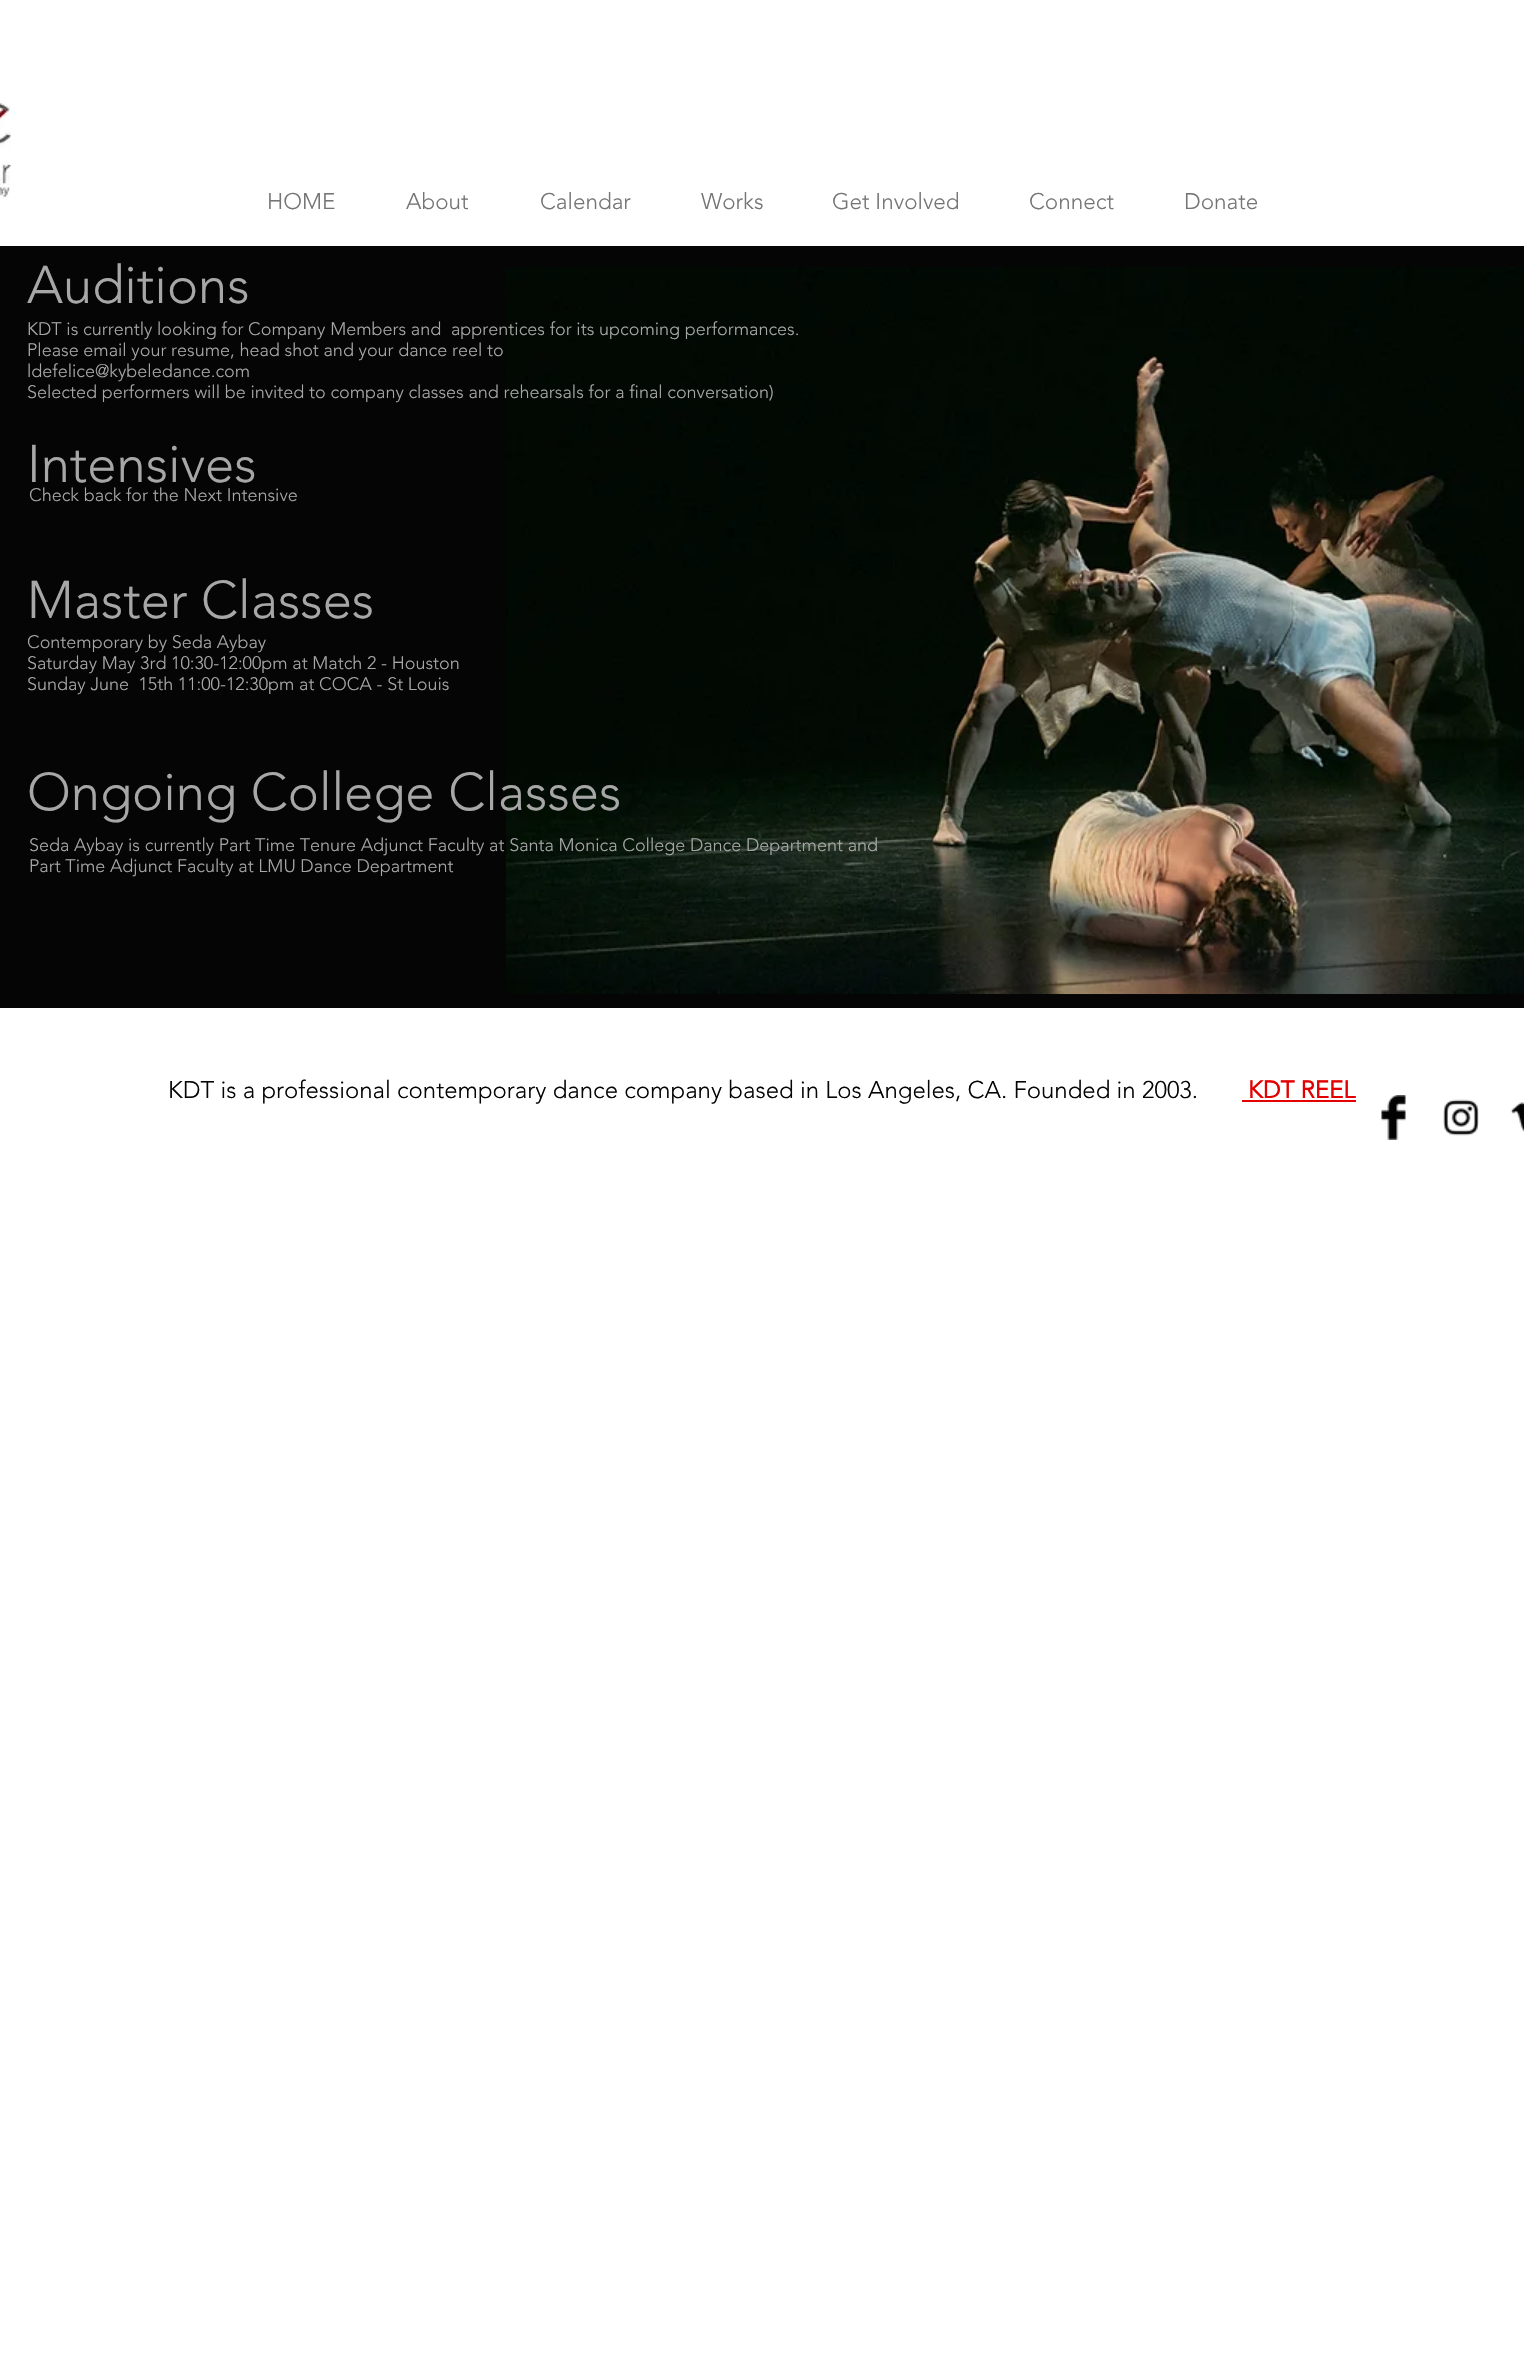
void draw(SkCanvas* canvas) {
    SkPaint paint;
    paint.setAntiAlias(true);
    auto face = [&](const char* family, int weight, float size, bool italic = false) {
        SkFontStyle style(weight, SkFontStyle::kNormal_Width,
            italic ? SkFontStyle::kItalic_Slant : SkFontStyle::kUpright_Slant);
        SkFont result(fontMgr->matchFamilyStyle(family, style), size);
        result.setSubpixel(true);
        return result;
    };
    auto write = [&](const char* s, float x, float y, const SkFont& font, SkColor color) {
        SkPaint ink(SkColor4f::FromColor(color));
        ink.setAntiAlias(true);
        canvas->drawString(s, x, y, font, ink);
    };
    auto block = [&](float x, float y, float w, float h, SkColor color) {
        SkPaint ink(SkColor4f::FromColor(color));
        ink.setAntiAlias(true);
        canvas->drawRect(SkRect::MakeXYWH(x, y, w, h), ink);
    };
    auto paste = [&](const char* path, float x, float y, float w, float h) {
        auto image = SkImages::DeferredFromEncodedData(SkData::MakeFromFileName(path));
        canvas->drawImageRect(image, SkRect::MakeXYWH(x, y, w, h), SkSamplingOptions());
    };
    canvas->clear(SK_ColorWHITE);
    paste("pic1.png", 0, 102, 16, 96);
    auto kFont1 = face("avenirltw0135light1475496", 300, 22.5f);
    write("HOME", 267, 209, kFont1, SkColorSetRGB(117, 117, 117));
    write("About", 406, 209, kFont1, SkColorSetRGB(117, 117, 117));
    write("Calendar", 540, 209, kFont1, SkColorSetRGB(117, 117, 117));
    write("Works", 701, 209, kFont1, SkColorSetRGB(117, 117, 117));
    write("Get Involved", 832, 209, kFont1, SkColorSetRGB(117, 117, 117));
    write("Connect", 1029, 209, kFont1, SkColorSetRGB(117, 117, 117));
    write("Donate", 1184, 209, kFont1, SkColorSetRGB(117, 117, 117));
    block(0, 246, 1524, 762, SkColorSetRGB(5, 5, 5));
    auto kFont2 = face("avenirltw0135light1475496", 300, 52.5f);
    write("Auditions", 27, 303, kFont2, SkColorSetRGB(167, 167, 167));
    paste("pic2.png", 506, 267, 1018, 728);
    auto kFont3 = face("avenirltw0135light1475496", 300, 18);
    write("KDT is currently looking for Company Members and", 27, 335, kFont3, SkColorSetRGB(167, 167, 167));
    write("apprentices for its upcoming performances.", 451, 335, kFont3, SkColorSetRGB(167, 167, 167));
    write("Please email your resume, head shot and your dance reel to", 27, 356, kFont3, SkColorSetRGB(167, 167, 167));
    write("ldefelice@kybeledance.com", 27, 377, kFont3, SkColorSetRGB(167, 167, 167));
    write("Selected performers will be invited to company classes and rehearsals for a final conversation)", 27, 398, kFont3, SkColorSetRGB(167, 167, 167));
    write("Intensives", 27, 482, kFont2, SkColorSetRGB(167, 167, 167));
    write("Check back for the Next Intensive", 29, 501, kFont3, SkColorSetRGB(167, 167, 167));
    write("Master Classes", 27, 618, kFont2, SkColorSetRGB(167, 167, 167));
    write("Contemporary by Seda Aybay", 27, 648, kFont3, SkColorSetRGB(167, 167, 167));
    write("Saturday May 3rd 10:30-12:00pm at Match 2 - Houston", 27, 669, kFont3, SkColorSetRGB(167, 167, 167));
    write("Sunday June  15th 11:00-12:30pm at COCA - St Louis", 27, 690, kFont3, SkColorSetRGB(167, 167, 167));
    write("Ongoing College Classes", 27, 810, kFont2, SkColorSetRGB(167, 167, 167));
    write("Seda Aybay is currently Part Time Tenure Adjunct Faculty at Santa Monica College Dance Department and", 29, 851, kFont3, SkColorSetRGB(167, 167, 167));
    write("Part Time Adjunct Faculty at LMU Dance Department", 29, 872, kFont3, SkColorSetRGB(167, 167, 167));
    auto kFont4 = face("avenirltw0135light1475496", 300, 24);
    write("KDT is a professional contemporary dance company based in Los Angeles, CA. Founded in 2003.", 168, 1098, kFont4, SkColorSetRGB(5, 5, 5));
    auto kFont5 = face("avenirltw0135light1475496", 700, 24);
    write("KDT REEL", 1248, 1098, kFont5, SkColorSetRGB(227, 0, 0));
    block(1242, 1100, 114, 2, SkColorSetRGB(227, 0, 0));
    paste("pic3.png", 1381, 1095, 25, 45);
    paste("pic4.png", 1443, 1099, 36, 37);
    paste("pic5.png", 1510, 1102, 14, 30);
}
